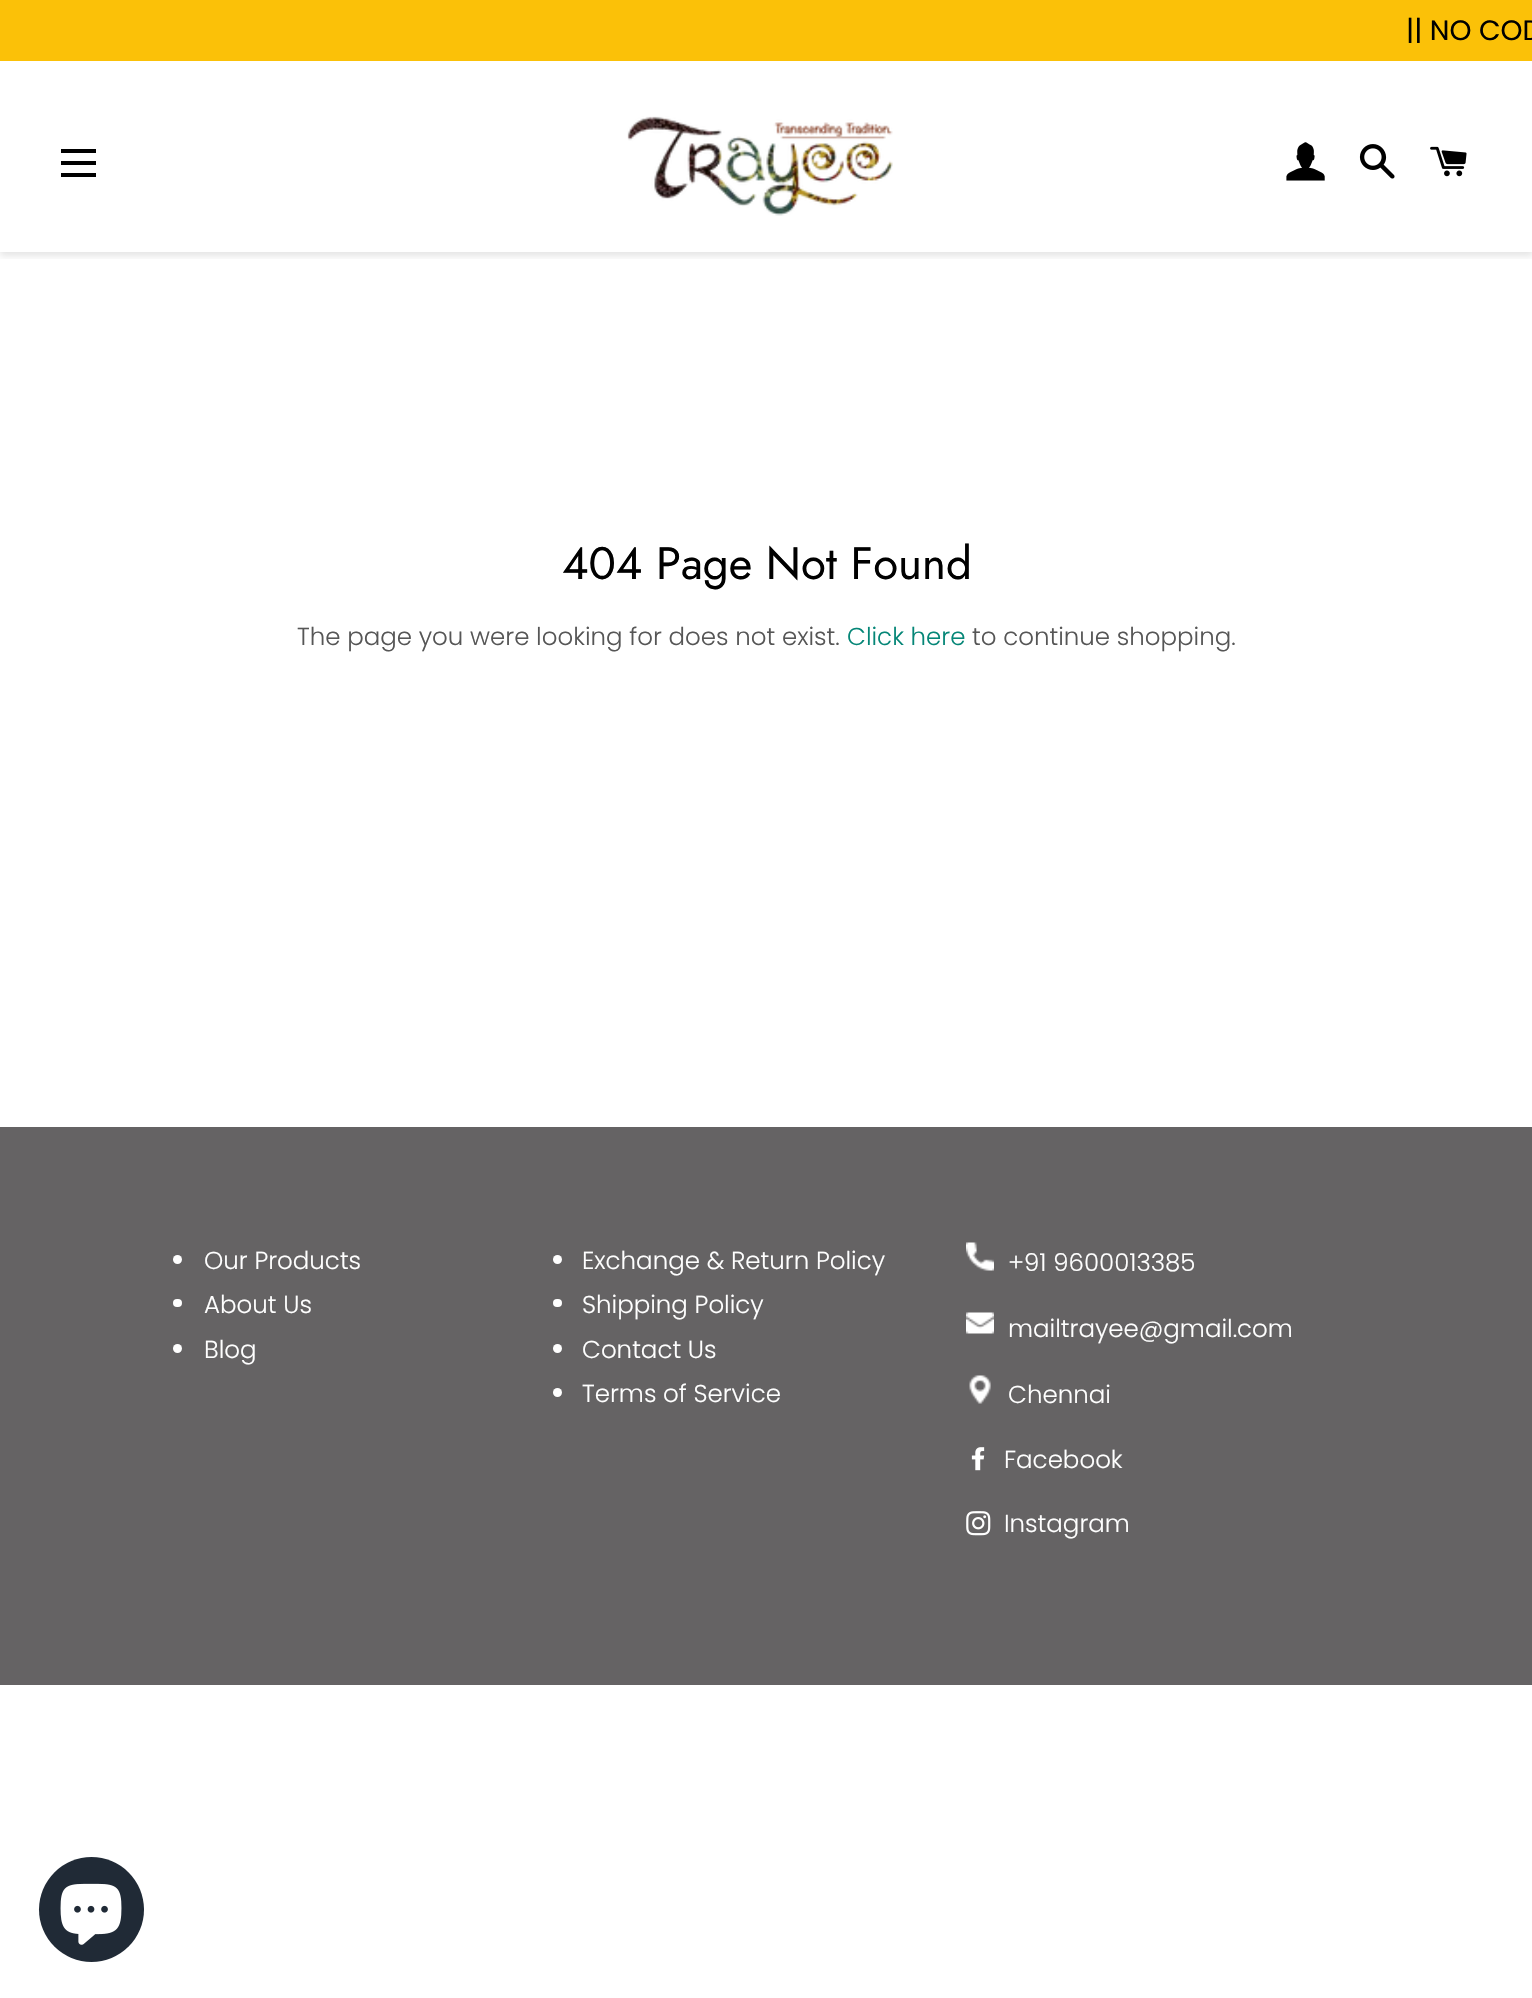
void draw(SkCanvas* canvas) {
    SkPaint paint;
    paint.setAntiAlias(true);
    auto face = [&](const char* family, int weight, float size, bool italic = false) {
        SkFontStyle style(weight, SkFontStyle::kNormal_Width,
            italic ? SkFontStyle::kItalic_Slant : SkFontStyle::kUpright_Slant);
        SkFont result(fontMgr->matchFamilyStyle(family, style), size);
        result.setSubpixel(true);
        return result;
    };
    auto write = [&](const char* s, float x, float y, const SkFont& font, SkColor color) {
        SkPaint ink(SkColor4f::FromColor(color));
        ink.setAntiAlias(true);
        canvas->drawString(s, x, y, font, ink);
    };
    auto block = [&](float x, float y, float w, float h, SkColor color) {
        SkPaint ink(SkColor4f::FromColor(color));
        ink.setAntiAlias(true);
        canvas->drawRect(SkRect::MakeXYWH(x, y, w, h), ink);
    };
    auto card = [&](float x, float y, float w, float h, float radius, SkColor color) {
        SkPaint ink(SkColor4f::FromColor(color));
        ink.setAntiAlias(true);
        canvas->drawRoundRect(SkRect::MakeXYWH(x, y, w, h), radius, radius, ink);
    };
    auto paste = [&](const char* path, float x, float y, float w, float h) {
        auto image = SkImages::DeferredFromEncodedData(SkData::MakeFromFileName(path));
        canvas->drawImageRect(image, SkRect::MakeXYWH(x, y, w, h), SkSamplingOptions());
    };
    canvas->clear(SK_ColorWHITE);
    canvas->save();
    canvas->clipRect(SkRect::MakeXYWH(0, 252, 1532, 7));
    paint.setColor(SkColorSetARGB(26, 0, 0, 0));
    paint.setMaskFilter(SkMaskFilter::MakeBlur(kNormal_SkBlurStyle, 3.5f));
    canvas->drawRect(SkRect::MakeXYWH(0, 4, 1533, 252), paint);
    paint.setMaskFilter(nullptr);
    canvas->restore();
    block(0, 0, 1532, 61, SkColorSetRGB(251, 193, 8));
    auto kFont1 = face("Poppins", 400, 28);
    write("|| NO COD", 1406, 40, kFont1, SK_ColorBLACK);
    block(61, 149, 35, 4, SK_ColorBLACK);
    block(61, 161, 35, 4, SK_ColorBLACK);
    block(61, 173, 35, 4, SK_ColorBLACK);
    paste("pic1.png", 627, 116, 266, 100);
    paste("pic2.png", 1286, 142, 39, 39);
    paste("pic3.png", 1359, 144, 36, 35);
    paste("pic4.png", 1430, 146, 37, 31);
    auto kFont2 = face("Jost", 400, 45.5f);
    write("404 Page Not Found", 562, 579, kFont2, SK_ColorBLACK);
    auto kFont3 = face("Poppins", 300, 24.5f);
    write("The page you were looking for does not exist.", 297, 645, kFont3, SkColorSetRGB(86, 86, 86));
    write("Click here", 847, 645, kFont3, SkColorSetRGB(5, 134, 119));
    write("to continue shopping.", 972, 645, kFont3, SkColorSetRGB(86, 86, 86));
    block(0, 1127, 1532, 558, SkColorSetRGB(101, 99, 100));
    paint.setColor(SK_ColorWHITE);
    canvas->drawCircle(177.5f, 1259.5f, 4.5f, paint);
    write("Our Products", 204, 1269, kFont3, SK_ColorWHITE);
    card(173, 1299, 9, 8, 4, SK_ColorWHITE);
    write("About Us", 204, 1313, kFont3, SK_ColorWHITE);
    canvas->drawCircle(177.5f, 1348.5f, 4.5f, paint);
    write("Blog", 204, 1358, kFont3, SK_ColorWHITE);
    canvas->drawCircle(557.5f, 1259.5f, 4.5f, paint);
    write("Exchange & Return Policy", 582, 1269, kFont3, SK_ColorWHITE);
    card(553, 1299, 9, 8, 4, SK_ColorWHITE);
    write("Shipping Policy", 582, 1313, kFont3, SK_ColorWHITE);
    canvas->drawCircle(557.5f, 1348.5f, 4.5f, paint);
    write("Contact Us", 582, 1358, kFont3, SK_ColorWHITE);
    canvas->drawCircle(557.5f, 1392.5f, 4.5f, paint);
    write("Terms of Service", 582, 1402, kFont3, SK_ColorWHITE);
    paste("pic5.png", 966, 1242, 28, 29);
    write("+91 9600013385", 1008, 1271, kFont3, SK_ColorWHITE);
    paste("pic6.png", 966, 1312, 28, 22);
    write("mailtrayee@gmail.com", 1008, 1337, kFont3, SK_ColorWHITE);
    paste("pic7.png", 969, 1375, 22, 29);
    write("Chennai", 1008, 1403, kFont3, SK_ColorWHITE);
    paste("pic8.png", 971, 1447, 14, 24);
    write("Facebook", 1004, 1468, kFont3, SK_ColorWHITE);
    paste("pic9.png", 966, 1511, 25, 25);
    write("Instagram", 1004, 1532, kFont3, SK_ColorWHITE);
    paint.setColor(SkColorSetRGB(32, 42, 54));
    canvas->drawCircle(91.5f, 1909.5f, 52.5f, paint);
    paste("pic10.png", 60, 1883, 62, 62);
}
